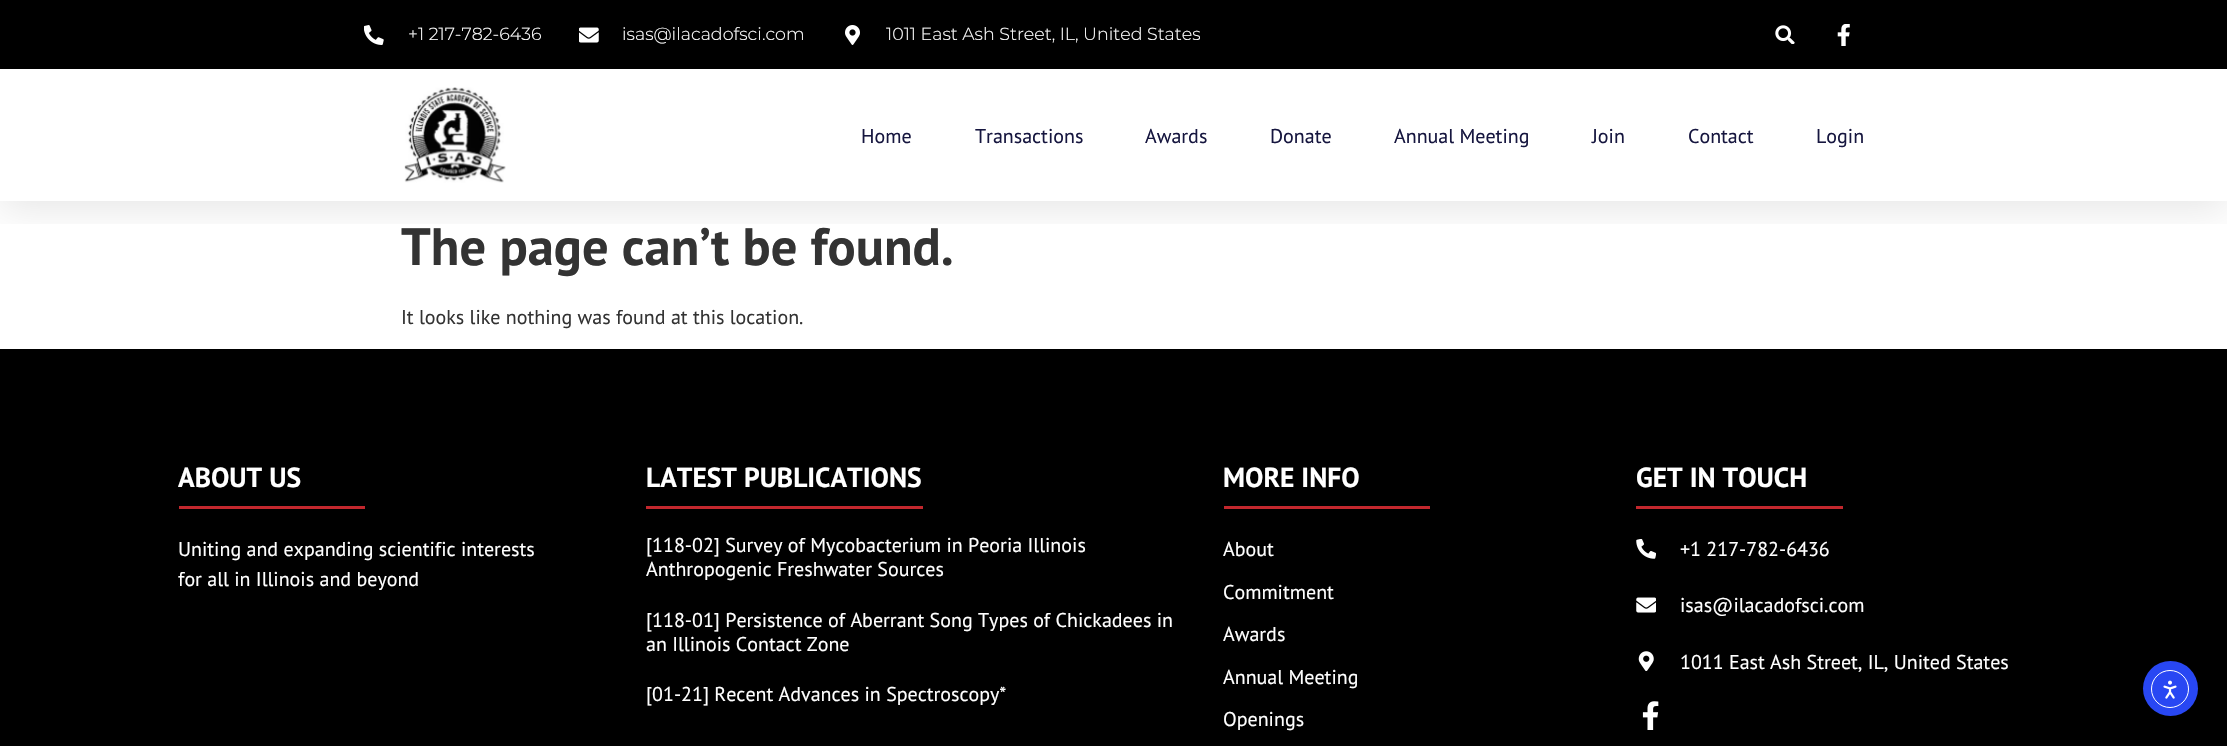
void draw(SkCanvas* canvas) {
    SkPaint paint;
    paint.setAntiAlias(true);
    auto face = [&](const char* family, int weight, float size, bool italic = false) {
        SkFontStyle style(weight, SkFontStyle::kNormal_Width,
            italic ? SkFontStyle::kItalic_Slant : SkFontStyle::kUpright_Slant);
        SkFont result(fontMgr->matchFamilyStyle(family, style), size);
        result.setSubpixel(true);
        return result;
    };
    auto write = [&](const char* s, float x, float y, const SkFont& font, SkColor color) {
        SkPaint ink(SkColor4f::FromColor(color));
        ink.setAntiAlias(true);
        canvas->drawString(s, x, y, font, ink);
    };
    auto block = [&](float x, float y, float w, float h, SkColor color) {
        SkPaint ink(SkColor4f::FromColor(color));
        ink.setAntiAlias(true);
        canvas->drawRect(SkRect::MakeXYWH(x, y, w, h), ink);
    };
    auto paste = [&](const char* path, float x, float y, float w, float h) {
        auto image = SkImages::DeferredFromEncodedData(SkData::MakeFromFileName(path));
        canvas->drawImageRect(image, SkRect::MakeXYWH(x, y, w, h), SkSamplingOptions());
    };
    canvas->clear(SK_ColorWHITE);
    canvas->save();
    canvas->clipRect(SkRect::MakeXYWH(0, 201, 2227, 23));
    paint.setColor(SkColorSetARGB(26, 0, 0, 0));
    paint.setMaskFilter(SkMaskFilter::MakeBlur(kNormal_SkBlurStyle, 19));
    canvas->drawRect(SkRect::MakeXYWH(0, 6, 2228, 202), paint);
    paint.setMaskFilter(nullptr);
    canvas->restore();
    block(0, 0, 2227, 69, SK_ColorBLACK);
    paste("pic1.png", 364, 25, 20, 20);
    auto kFont1 = face("Montserrat", 300, 17.5f);
    write("+1 217-782-6436", 408, 40, kFont1, SK_ColorWHITE);
    paste("pic2.png", 579, 27, 20, 16);
    write("isas@ilacadofsci.com", 622, 40, kFont1, SK_ColorWHITE);
    paste("pic3.png", 845, 25, 15, 20);
    write("1011 East Ash Street, IL, United States", 886, 40, kFont1, SK_ColorWHITE);
    paste("pic4.png", 1775, 25, 20, 19);
    paste("pic5.png", 1837, 24, 13, 22);
    paste("pic6.png", 404, 87, 102, 96);
    auto kFont2 = face("PT Sans", 400, 20);
    write("Home", 861, 143, kFont2, SkColorSetRGB(22, 22, 63));
    write("Transactions", 975, 143, kFont2, SkColorSetRGB(22, 22, 63));
    write("Awards", 1145, 143, kFont2, SkColorSetRGB(22, 22, 63));
    write("Donate", 1270, 143, kFont2, SkColorSetRGB(22, 22, 63));
    write("Annual Meeting", 1394, 143, kFont2, SkColorSetRGB(22, 22, 63));
    write("Join", 1592, 143, kFont2, SkColorSetRGB(22, 22, 63));
    write("Contact", 1688, 143, kFont2, SkColorSetRGB(22, 22, 63));
    write("Login", 1816, 143, kFont2, SkColorSetRGB(22, 22, 63));
    auto kFont3 = face("PT Sans", 700, 52.5f);
    write("The page can’t be found.", 401, 265, kFont3, SkColorSetRGB(51, 51, 51));
    write("It looks like nothing was found at this location.", 401, 324, kFont2, SkColorSetRGB(51, 51, 51));
    block(0, 349, 2227, 397, SK_ColorBLACK);
    auto kFont4 = face("PT Sans", 700, 27.5f);
    write("ABOUT US", 178, 487, kFont4, SK_ColorWHITE);
    block(179, 506, 186, 3, SkColorSetRGB(194, 39, 45));
    write("Uniting and expanding scientific interests", 178, 556, kFont2, SK_ColorWHITE);
    write("for all in Illinois and beyond", 178, 586, kFont2, SK_ColorWHITE);
    write("LATEST PUBLICATIONS", 646, 487, kFont4, SK_ColorWHITE);
    block(646, 506, 277, 3, SkColorSetRGB(194, 39, 45));
    write("[118-02] Survey of Mycobacterium in Peoria Illinois", 646, 552, kFont2, SK_ColorWHITE);
    write("Anthropogenic Freshwater Sources", 646, 576, kFont2, SK_ColorWHITE);
    write("[118-01] Persistence of Aberrant Song Types of Chickadees in", 646, 627, kFont2, SK_ColorWHITE);
    write("an Illinois Contact Zone", 646, 651, kFont2, SK_ColorWHITE);
    write("[01-21] Recent Advances in Spectroscopy*", 646, 701, kFont2, SK_ColorWHITE);
    write("MORE INFO", 1223, 487, kFont4, SK_ColorWHITE);
    block(1224, 506, 206, 3, SkColorSetRGB(194, 39, 45));
    write("About", 1223, 556, kFont2, SK_ColorWHITE);
    write("Commitment", 1223, 599, kFont2, SK_ColorWHITE);
    write("Awards", 1223, 641, kFont2, SK_ColorWHITE);
    write("Annual Meeting", 1223, 684, kFont2, SK_ColorWHITE);
    write("Openings", 1223, 726, kFont2, SK_ColorWHITE);
    write("GET IN TOUCH", 1636, 487, kFont4, SK_ColorWHITE);
    block(1636, 506, 207, 3, SkColorSetRGB(194, 39, 45));
    paste("pic7.png", 1636, 539, 20, 20);
    write("+1 217-782-6436", 1680, 556, kFont2, SK_ColorWHITE);
    paste("pic8.png", 1636, 597, 20, 16);
    write("isas@ilacadofsci.com", 1680, 612, kFont2, SK_ColorWHITE);
    paste("pic9.png", 1638, 651, 16, 20);
    write("1011 East Ash Street, IL, United States", 1680, 669, kFont2, SK_ColorWHITE);
    paste("pic10.png", 1642, 701, 17, 29);
    paint.setColor(SkColorSetRGB(40, 71, 243));
    canvas->drawCircle(2170.5f, 688.5f, 27.5f, paint);
    paint.setStyle(SkPaint::kStroke_Style);
    paint.setStrokeWidth(1);
    paint.setColor(SK_ColorWHITE);
    canvas->drawCircle(2170, 689, 18.5f, paint);
    paste("pic11.png", 2163, 680, 14, 19);
}
